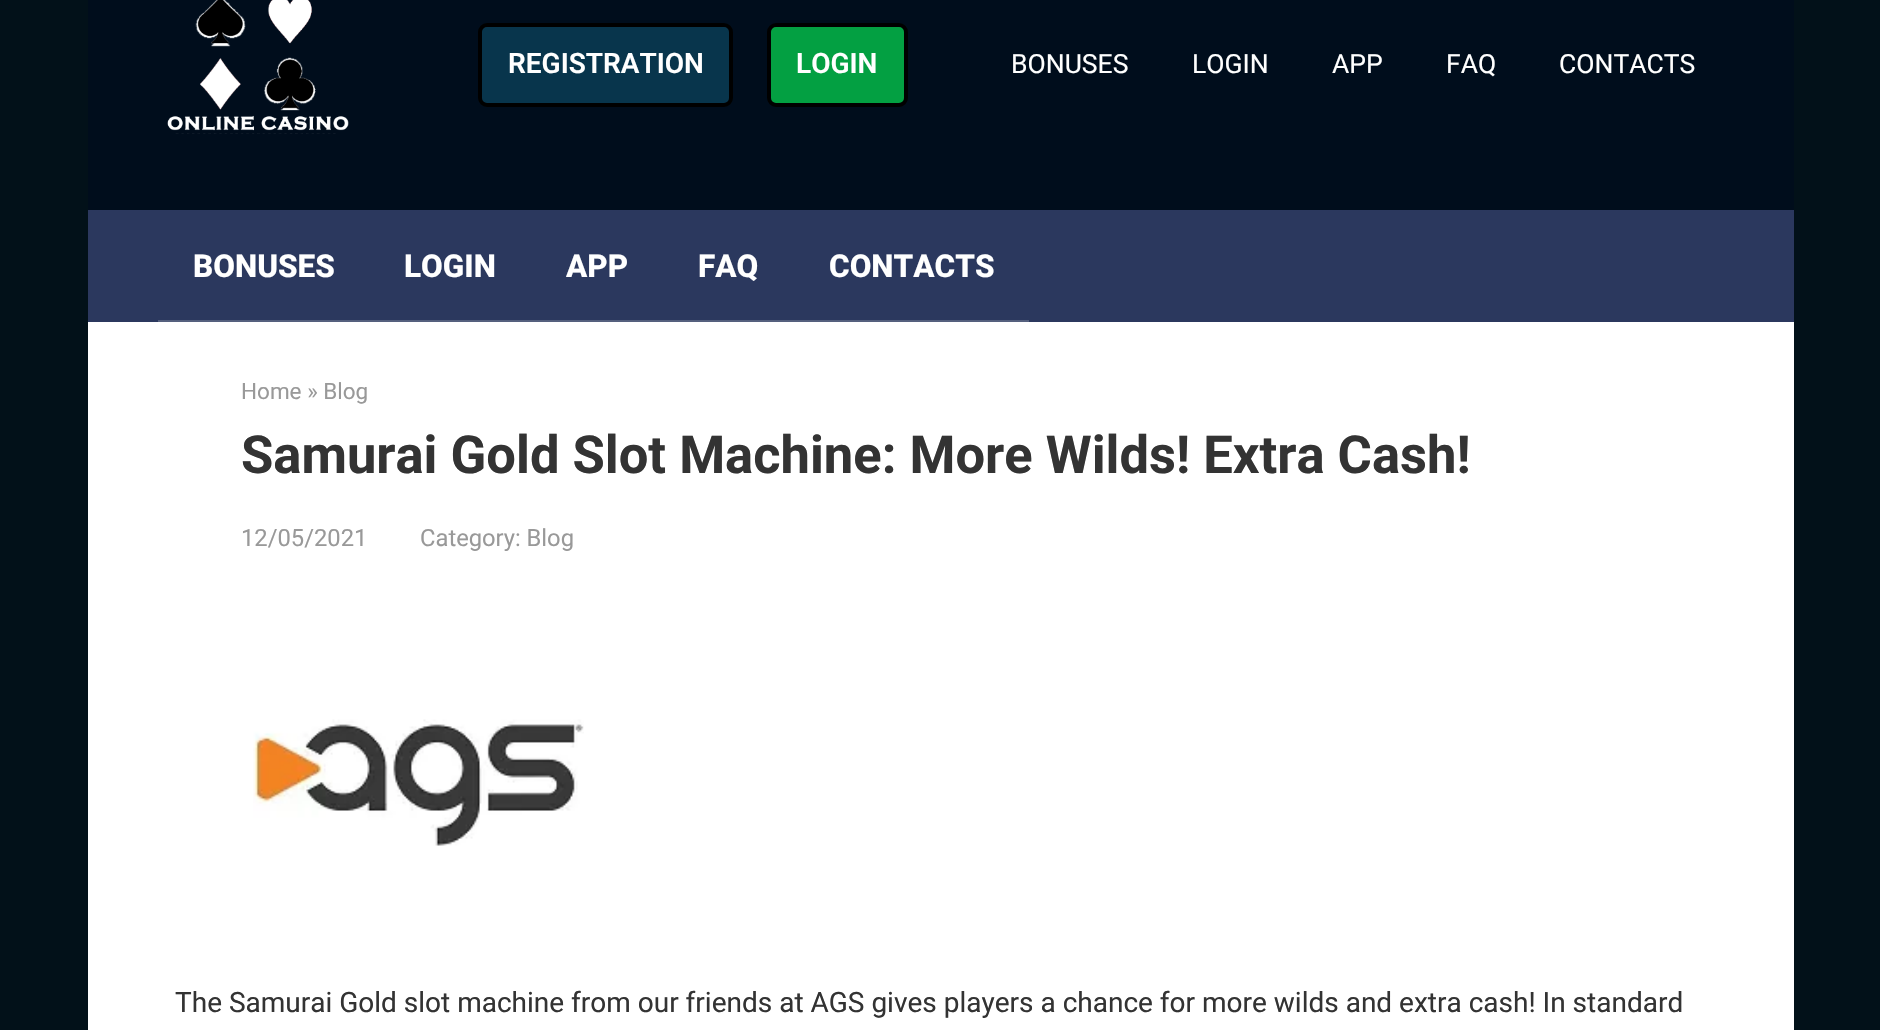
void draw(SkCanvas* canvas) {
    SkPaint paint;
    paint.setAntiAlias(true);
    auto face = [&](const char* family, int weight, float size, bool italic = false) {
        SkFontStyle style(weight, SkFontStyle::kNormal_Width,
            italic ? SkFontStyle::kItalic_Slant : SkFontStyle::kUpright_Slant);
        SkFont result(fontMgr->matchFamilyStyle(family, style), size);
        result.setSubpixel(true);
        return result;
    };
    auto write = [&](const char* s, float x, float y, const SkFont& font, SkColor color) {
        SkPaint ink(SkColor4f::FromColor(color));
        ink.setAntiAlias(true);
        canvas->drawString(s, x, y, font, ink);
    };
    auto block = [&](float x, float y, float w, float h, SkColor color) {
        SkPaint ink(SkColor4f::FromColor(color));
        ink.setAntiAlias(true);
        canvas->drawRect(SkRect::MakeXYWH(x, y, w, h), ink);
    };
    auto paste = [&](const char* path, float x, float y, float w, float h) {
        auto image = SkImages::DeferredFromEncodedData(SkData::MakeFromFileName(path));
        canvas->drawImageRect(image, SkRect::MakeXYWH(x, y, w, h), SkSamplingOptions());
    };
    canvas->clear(SkColorSetRGB(2, 17, 25));
    block(88, 0, 1706, 210, SkColorSetRGB(0, 13, 28));
    paste("pic1.png", 167, 0, 182, 134);
    paint.setColor(SkColorSetRGB(8, 53, 76));
    canvas->drawRoundRect(SkRect::MakeXYWH(480, 25, 251, 80), 7, 7, paint);
    paint.setStyle(SkPaint::kStroke_Style);
    paint.setStrokeWidth(4);
    paint.setColor(SK_ColorBLACK);
    canvas->drawRoundRect(SkRect::MakeXYWH(480, 25, 251, 80), 7, 7, paint);
    auto kFont1 = face("Roboto", 600, 28);
    write("REGISTRATION", 508, 73, kFont1, SK_ColorWHITE);
    paint.setStyle(SkPaint::kFill_Style);
    paint.setColor(SkColorSetRGB(3, 160, 66));
    canvas->drawRoundRect(SkRect::MakeXYWH(769, 25, 137, 80), 7, 7, paint);
    paint.setStyle(SkPaint::kStroke_Style);
    paint.setColor(SK_ColorBLACK);
    canvas->drawRoundRect(SkRect::MakeXYWH(769, 25, 137, 80), 7, 7, paint);
    write("LOGIN", 796, 73, kFont1, SK_ColorWHITE);
    auto kFont2 = face("Roboto", 400, 26.5f);
    write("BONUSES", 1011, 73, kFont2, SK_ColorWHITE);
    write("LOGIN", 1192, 73, kFont2, SK_ColorWHITE);
    write("APP", 1332, 73, kFont2, SK_ColorWHITE);
    write("FAQ", 1446, 73, kFont2, SK_ColorWHITE);
    write("CONTACTS", 1559, 73, kFont2, SK_ColorWHITE);
    block(88, 210, 1706, 112, SkColorSetRGB(43, 56, 94));
    block(158, 320, 871, 2, SkColorSetRGB(85, 96, 126));
    auto kFont3 = face("Roboto", 800, 31.5f);
    write("BONUSES", 193, 277, kFont3, SK_ColorWHITE);
    write("LOGIN", 404, 277, kFont3, SK_ColorWHITE);
    write("APP", 566, 277, kFont3, SK_ColorWHITE);
    write("FAQ", 698, 277, kFont3, SK_ColorWHITE);
    write("CONTACTS", 829, 277, kFont3, SK_ColorWHITE);
    block(88, 322, 1706, 708, SK_ColorWHITE);
    auto kFont4 = face("Roboto", 400, 22.5f);
    write("Home » Blog", 241, 399, kFont4, SkColorSetRGB(153, 153, 153));
    auto kFont5 = face("Roboto", 700, 52.5f);
    write("Samurai Gold Slot Machine: More Wilds! Extra Cash!", 241, 473, kFont5, SkColorSetRGB(51, 51, 51));
    auto kFont6 = face("Roboto", 400, 23.75f);
    write("12/05/2021", 241, 546, kFont6, SkColorSetRGB(153, 153, 153));
    write("Category: Blog", 420, 546, kFont6, SkColorSetRGB(153, 153, 153));
    paste("pic2.png", 253, 719, 331, 127);
    auto kFont7 = face("Roboto", 400, 28);
    write("The Samurai Gold slot machine from our friends at AGS gives players a chance for more wilds and extra cash! In standard", 175, 1012, kFont7, SkColorSetRGB(51, 51, 51));
}
